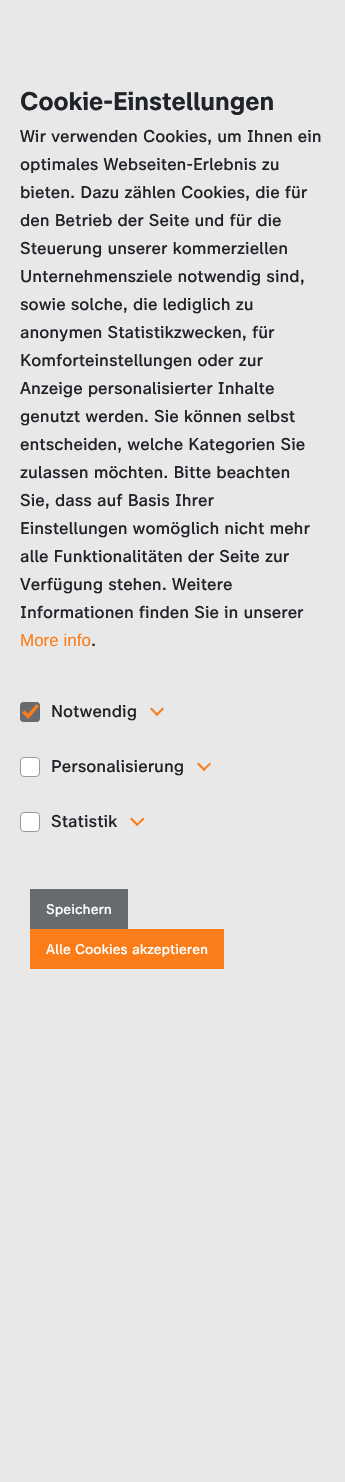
void draw(SkCanvas* canvas) {
    SkPaint paint;
    paint.setAntiAlias(true);
    auto face = [&](const char* family, int weight, float size, bool italic = false) {
        SkFontStyle style(weight, SkFontStyle::kNormal_Width,
            italic ? SkFontStyle::kItalic_Slant : SkFontStyle::kUpright_Slant);
        SkFont result(fontMgr->matchFamilyStyle(family, style), size);
        result.setSubpixel(true);
        return result;
    };
    auto write = [&](const char* s, float x, float y, const SkFont& font, SkColor color) {
        SkPaint ink(SkColor4f::FromColor(color));
        ink.setAntiAlias(true);
        canvas->drawString(s, x, y, font, ink);
    };
    auto block = [&](float x, float y, float w, float h, SkColor color) {
        SkPaint ink(SkColor4f::FromColor(color));
        ink.setAntiAlias(true);
        canvas->drawRect(SkRect::MakeXYWH(x, y, w, h), ink);
    };
    auto card = [&](float x, float y, float w, float h, float radius, SkColor color) {
        SkPaint ink(SkColor4f::FromColor(color));
        ink.setAntiAlias(true);
        canvas->drawRoundRect(SkRect::MakeXYWH(x, y, w, h), radius, radius, ink);
    };
    auto paste = [&](const char* path, float x, float y, float w, float h) {
        auto image = SkImages::DeferredFromEncodedData(SkData::MakeFromFileName(path));
        canvas->drawImageRect(image, SkRect::MakeXYWH(x, y, w, h), SkSamplingOptions());
    };
    canvas->clear(SkColorSetRGB(232, 232, 232));
    auto kFont1 = face("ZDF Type", 700, 25.5f);
    write("Cookie-Einstellungen", 20, 110, kFont1, SkColorSetRGB(32, 35, 40));
    auto kFont2 = face("ZDF Type", 500, 17);
    write("Wir verwenden Cookies, um Ihnen ein", 20, 142, kFont2, SkColorSetRGB(32, 35, 40));
    write("optimales Webseiten-Erlebnis zu", 20, 170, kFont2, SkColorSetRGB(32, 35, 40));
    write("bieten. Dazu zählen Cookies, die für", 20, 198, kFont2, SkColorSetRGB(32, 35, 40));
    write("den Betrieb der Seite und für die", 20, 226, kFont2, SkColorSetRGB(32, 35, 40));
    write("Steuerung unserer kommerziellen", 20, 254, kFont2, SkColorSetRGB(32, 35, 40));
    write("Unternehmensziele notwendig sind,", 20, 282, kFont2, SkColorSetRGB(32, 35, 40));
    write("sowie solche, die lediglich zu", 20, 310, kFont2, SkColorSetRGB(32, 35, 40));
    write("anonymen Statistikzwecken, für", 20, 338, kFont2, SkColorSetRGB(32, 35, 40));
    write("Komforteinstellungen oder zur", 20, 366, kFont2, SkColorSetRGB(32, 35, 40));
    write("Anzeige personalisierter Inhalte", 20, 394, kFont2, SkColorSetRGB(32, 35, 40));
    write("genutzt werden. Sie können selbst", 20, 422, kFont2, SkColorSetRGB(32, 35, 40));
    write("entscheiden, welche Kategorien Sie", 20, 450, kFont2, SkColorSetRGB(32, 35, 40));
    write("zulassen möchten. Bitte beachten", 20, 478, kFont2, SkColorSetRGB(32, 35, 40));
    write("Sie, dass auf Basis Ihrer", 20, 506, kFont2, SkColorSetRGB(32, 35, 40));
    write("Einstellungen womöglich nicht mehr", 20, 534, kFont2, SkColorSetRGB(32, 35, 40));
    write("alle Funktionalitäten der Seite zur", 20, 562, kFont2, SkColorSetRGB(32, 35, 40));
    write("Verfügung stehen. Weitere", 20, 590, kFont2, SkColorSetRGB(32, 35, 40));
    write("Informationen finden Sie in unserer", 20, 618, kFont2, SkColorSetRGB(32, 35, 40));
    auto kFont3 = face("Liberation Sans", 400, 17);
    write("More info", 20, 646, kFont3, SkColorSetRGB(250, 125, 25));
    write(".", 91, 646, kFont2, SkColorSetRGB(32, 35, 40));
    card(20, 702, 20, 20, 4, SkColorSetRGB(103, 106, 111));
    paste("pic1.png", 22, 704, 17, 15);
    paint.setStyle(SkPaint::kStroke_Style);
    paint.setStrokeWidth(1);
    paint.setColor(SkColorSetRGB(103, 106, 111));
    canvas->drawRoundRect(SkRect::MakeXYWH(20.5f, 702.5f, 19, 19), 3.5f, 3.5f, paint);
    write("Notwendig", 51, 717, kFont2, SkColorSetRGB(32, 35, 40));
    paint.setStyle(SkPaint::kFill_Style);
    paint.setColor(SkColorSetRGB(250, 125, 25));
    canvas->drawPath(SkPathBuilder().moveTo(162.5f, 707.5f).lineTo(164, 709).lineTo(157, 716).lineTo(155.5f, 714.5f).close().detach(), paint);
    canvas->drawPath(SkPathBuilder().moveTo(151.5f, 707.5f).lineTo(158.5f, 714.5f).lineTo(157, 716).lineTo(150, 709).close().detach(), paint);
    paint.setColor(SK_ColorWHITE);
    canvas->drawRoundRect(SkRect::MakeXYWH(20.5f, 757.5f, 19, 19), 3.5f, 3.5f, paint);
    paint.setStyle(SkPaint::kStroke_Style);
    paint.setColor(SkColorSetRGB(153, 153, 153));
    canvas->drawRoundRect(SkRect::MakeXYWH(20.5f, 757.5f, 19, 19), 3.5f, 3.5f, paint);
    write("Personalisierung", 51, 772, kFont2, SkColorSetRGB(32, 35, 40));
    paint.setStyle(SkPaint::kFill_Style);
    paint.setColor(SkColorSetRGB(250, 125, 25));
    canvas->drawPath(SkPathBuilder().moveTo(210, 762.5f).lineTo(211, 764).lineTo(204, 771).lineTo(202.5f, 769.5f).close().detach(), paint);
    canvas->drawPath(SkPathBuilder().moveTo(198.5f, 762.5f).lineTo(205.5f, 769.5f).lineTo(204, 771).lineTo(197, 764).close().detach(), paint);
    paint.setColor(SK_ColorWHITE);
    canvas->drawRoundRect(SkRect::MakeXYWH(20.5f, 812.5f, 19, 19), 3.5f, 3.5f, paint);
    paint.setStyle(SkPaint::kStroke_Style);
    paint.setColor(SkColorSetRGB(153, 153, 153));
    canvas->drawRoundRect(SkRect::MakeXYWH(20.5f, 812.5f, 19, 19), 3.5f, 3.5f, paint);
    write("Statistik", 51, 827, kFont2, SkColorSetRGB(32, 35, 40));
    paint.setStyle(SkPaint::kFill_Style);
    paint.setColor(SkColorSetRGB(250, 125, 25));
    canvas->drawPath(SkPathBuilder().moveTo(143, 817.5f).lineTo(144.5f, 819).lineTo(137, 826).lineTo(136, 824.5f).close().detach(), paint);
    canvas->drawPath(SkPathBuilder().moveTo(131.5f, 817.5f).lineTo(138.5f, 824.5f).lineTo(137, 826).lineTo(130, 819).close().detach(), paint);
    block(30, 889, 98, 40, SkColorSetRGB(103, 106, 111));
    auto kFont4 = face("ZDF Type", 500, 14);
    write("Speichern", 46, 914, kFont4, SK_ColorWHITE);
    block(30, 929, 194, 40, SkColorSetRGB(250, 125, 25));
    write("Alle Cookies akzeptieren", 46, 954, kFont4, SK_ColorWHITE);
}
